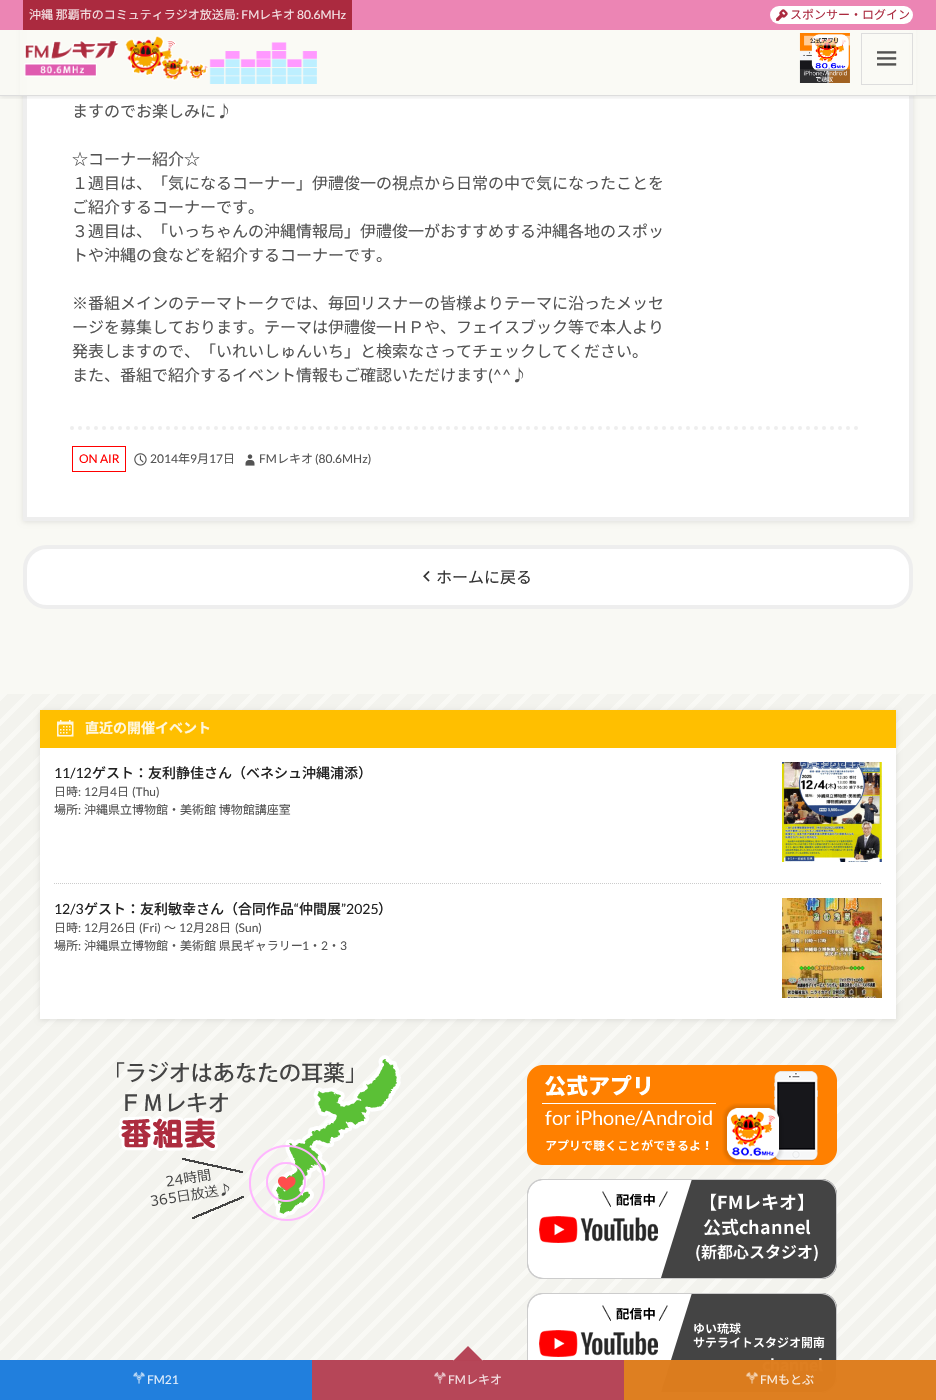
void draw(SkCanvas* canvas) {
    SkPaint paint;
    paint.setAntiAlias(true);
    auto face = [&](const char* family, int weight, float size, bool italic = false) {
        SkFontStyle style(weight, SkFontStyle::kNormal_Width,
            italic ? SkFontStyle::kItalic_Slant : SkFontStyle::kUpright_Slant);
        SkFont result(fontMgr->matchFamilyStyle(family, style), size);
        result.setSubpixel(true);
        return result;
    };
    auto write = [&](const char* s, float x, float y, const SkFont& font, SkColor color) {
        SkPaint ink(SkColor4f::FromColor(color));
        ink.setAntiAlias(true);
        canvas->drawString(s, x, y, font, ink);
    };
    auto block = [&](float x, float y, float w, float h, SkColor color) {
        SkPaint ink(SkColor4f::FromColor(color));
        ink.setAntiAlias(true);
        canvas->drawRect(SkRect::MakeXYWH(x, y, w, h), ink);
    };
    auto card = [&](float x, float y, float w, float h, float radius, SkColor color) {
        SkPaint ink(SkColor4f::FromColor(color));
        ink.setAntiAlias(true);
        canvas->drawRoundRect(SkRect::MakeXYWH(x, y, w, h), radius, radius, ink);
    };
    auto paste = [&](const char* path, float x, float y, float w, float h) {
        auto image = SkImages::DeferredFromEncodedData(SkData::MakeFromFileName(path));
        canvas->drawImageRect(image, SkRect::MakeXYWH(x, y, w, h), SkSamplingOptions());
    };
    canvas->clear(SkColorSetRGB(249, 249, 244));
    paint.setColor(SkColorSetARGB(26, 0, 0, 0));
    paint.setMaskFilter(SkMaskFilter::MakeBlur(kNormal_SkBlurStyle, 2.5f));
    canvas->drawRect(SkRect::MakeXYWH(23, -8, 890, 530), paint);
    paint.setMaskFilter(nullptr);
    block(27, 30, 882, 487, SK_ColorWHITE);
    paint.setStyle(SkPaint::kStroke_Style);
    paint.setStrokeWidth(4);
    paint.setColor(SkColorSetRGB(238, 238, 238));
    canvas->drawRect(SkRect::MakeXYWH(25, -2, 886, 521), paint);
    canvas->save();
    canvas->clipRect(SkRect::MakeXYWH(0, 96, 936, 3));
    paint.setStyle(SkPaint::kFill_Style);
    paint.setColor(SkColorSetARGB(26, 0, 0, 0));
    paint.setMaskFilter(SkMaskFilter::MakeBlur(kNormal_SkBlurStyle, 2.5f));
    canvas->drawRect(SkRect::MakeXYWH(0, 1, 936, 96), paint);
    paint.setMaskFilter(nullptr);
    canvas->restore();
    block(20, 30, 896, 65, SkColorSetARGB(230, 249, 249, 244));
    block(0, 95, 936, 1, SkColorSetRGB(221, 221, 221));
    block(0, 0, 936, 30, SkColorSetRGB(236, 133, 180));
    block(23, 0, 329, 30, SkColorSetRGB(171, 42, 63));
    auto kFont1 = face("Noto Sans JP", 400, 12);
    write("沖縄 那覇市のコミュティラジオ放送局", 29, 19, kFont1, SkColorSetRGB(244, 227, 230));
    auto kFont2 = face("Lato", 400, 12);
    write(": FM", 236, 19, kFont2, SkColorSetRGB(244, 227, 230));
    write("レキオ", 259, 19, kFont1, SkColorSetRGB(244, 227, 230));
    write("80.6MHz", 297, 19, kFont2, SkColorSetRGB(244, 227, 230));
    card(770, 6, 143, 18, 9, SK_ColorWHITE);
    paste("pic1.png", 776, 9, 12, 12);
    write("スポンサー・ログイン", 790, 19, kFont1, SkColorSetRGB(171, 42, 63));
    paste("pic2.png", 24, 35, 185, 46);
    paste("pic3.png", 209, 42, 108, 42);
    paste("pic4.png", 799, 33, 51, 50);
    paint.setStyle(SkPaint::kStroke_Style);
    paint.setStrokeWidth(1);
    paint.setColor(SkColorSetRGB(221, 221, 221));
    canvas->drawRect(SkRect::MakeXYWH(861.5f, 33.5f, 51, 51), paint);
    paste("pic5.png", 877, 51, 20, 15);
    auto kFont3 = face("Noto Sans JP", 400, 16);
    write("ますのでお楽しみに♪", 72, 117, kFont3, SkColorSetRGB(83, 83, 83));
    write("☆コーナー紹介☆", 72, 165, kFont3, SkColorSetRGB(83, 83, 83));
    write("１週目は、「気になるコーナー」伊禮俊一の視点から日常の中で気になったことを", 72, 189, kFont3, SkColorSetRGB(83, 83, 83));
    write("ご紹介するコーナーです。", 72, 213, kFont3, SkColorSetRGB(83, 83, 83));
    write("３週目は、「いっちゃんの沖縄情報局」伊禮俊一がおすすめする沖縄各地のスポッ", 72, 237, kFont3, SkColorSetRGB(83, 83, 83));
    write("トや沖縄の食などを紹介するコーナーです。", 72, 261, kFont3, SkColorSetRGB(83, 83, 83));
    write("※番組メインのテーマトークでは、毎回リスナーの皆様よりテーマに沿ったメッセ", 72, 309, kFont3, SkColorSetRGB(83, 83, 83));
    write("ージを募集しております。テーマは伊禮俊一ＨＰや、フェイスブック等で本人より", 72, 333, kFont3, SkColorSetRGB(83, 83, 83));
    write("発表しますので、「いれいしゅんいち」と検索なさってチェックしてください。", 72, 357, kFont3, SkColorSetRGB(83, 83, 83));
    write("また、番組で紹介するイベント情報もご確認いただけます", 72, 381, kFont3, SkColorSetRGB(83, 83, 83));
    auto kFont4 = face("Lato", 400, 16);
    write("(^^", 488, 381, kFont4, SkColorSetRGB(83, 83, 83));
    write("♪", 511, 381, kFont3, SkColorSetRGB(83, 83, 83));
    paint.setStrokeWidth(4);
    paint.setStrokeCap(SkPaint::kRound_Cap);
    paint.setColor(SkColorSetRGB(238, 238, 238));
    paint.setPathEffect(SkDashPathEffect::Make({{0, 8}}, 0));
    canvas->drawPath(SkPathBuilder().moveTo(72, 428).lineTo(864, 428).detach(), paint);
    paint.setPathEffect(nullptr);
    paint.setStrokeWidth(1);
    paint.setStrokeCap(SkPaint::kButt_Cap);
    paint.setColor(SkColorSetRGB(255, 0, 0));
    canvas->drawRect(SkRect::MakeXYWH(72.5f, 446.5f, 53, 25), paint);
    write("ON AIR", 79, 463, kFont2, SkColorSetRGB(255, 0, 0));
    paste("pic6.png", 134, 453, 13, 13);
    write("2014", 150, 463, kFont2, SkColorSetRGB(83, 83, 83));
    write("年", 178, 463, kFont1, SkColorSetRGB(83, 83, 83));
    write("9", 190, 463, kFont2, SkColorSetRGB(83, 83, 83));
    write("月", 197, 463, kFont1, SkColorSetRGB(83, 83, 83));
    write("17", 209, 463, kFont2, SkColorSetRGB(83, 83, 83));
    write("日", 223, 463, kFont1, SkColorSetRGB(83, 83, 83));
    paste("pic7.png", 245, 454, 10, 12);
    write("FM", 259, 463, kFont2, SkColorSetRGB(83, 83, 83));
    write("レキオ", 277, 463, kFont1, SkColorSetRGB(83, 83, 83));
    write("(80.6MHz)", 315, 463, kFont2, SkColorSetRGB(83, 83, 83));
    paint.setStyle(SkPaint::kFill_Style);
    paint.setColor(SK_ColorWHITE);
    canvas->drawRoundRect(SkRect::MakeXYWH(25, 547, 886, 60), 22, 22, paint);
    paint.setStyle(SkPaint::kStroke_Style);
    paint.setStrokeWidth(4);
    paint.setColor(SkColorSetRGB(238, 238, 238));
    canvas->drawRoundRect(SkRect::MakeXYWH(25, 547, 886, 60), 22, 22, paint);
    paste("pic8.png", 423, 570, 7, 12);
    write("ホームに戻る", 436, 583, kFont3, SkColorSetRGB(51, 51, 51));
    paste("pic9.png", 0, 694, 936, 706);
    paint.setStyle(SkPaint::kFill_Style);
    paint.setColor(SkColorSetARGB(26, 0, 0, 0));
    paint.setMaskFilter(SkMaskFilter::MakeBlur(kNormal_SkBlurStyle, 2.5f));
    canvas->drawRect(SkRect::MakeXYWH(40, 711, 856, 309), paint);
    paint.setMaskFilter(nullptr);
    block(40, 748, 856, 271, SK_ColorWHITE);
    block(40, 710, 856, 38, SkColorSetRGB(255, 191, 0));
    paste("pic10.png", 57, 720, 17, 17);
    auto kFont5 = face("Noto Sans JP", 700, 14);
    write("直近の開催イベント", 85, 733, kFont5, SkColorSetRGB(255, 247, 222));
    auto kFont6 = face("Lato", 400, 14);
    write("11/12", 54, 778, kFont6, SkColorSetRGB(33, 33, 33));
    auto kFont7 = face("Noto Sans JP", 500, 14);
    write("ゲスト：友利静佳さん（ベネシュ沖縄浦添）", 92, 778, kFont7, SkColorSetRGB(33, 33, 33));
    paste("pic11.png", 782, 762, 100, 100);
    write("日時", 54, 796, kFont1, SkColorSetRGB(83, 83, 83));
    write(":", 78, 796, kFont2, SkColorSetRGB(83, 83, 83));
    write("12", 84, 796, kFont2, SkColorSetRGB(83, 83, 83));
    write("月", 98, 796, kFont1, SkColorSetRGB(83, 83, 83));
    write("4", 110, 796, kFont2, SkColorSetRGB(83, 83, 83));
    write("日", 117, 796, kFont1, SkColorSetRGB(83, 83, 83));
    write("(Thu)", 132, 796, kFont2, SkColorSetRGB(83, 83, 83));
    write("場所", 54, 814, kFont1, SkColorSetRGB(83, 83, 83));
    write(":", 78, 814, kFont2, SkColorSetRGB(83, 83, 83));
    write("沖縄県立博物館・美術館 博物館講座室", 84, 814, kFont1, SkColorSetRGB(83, 83, 83));
    paint.setStyle(SkPaint::kStroke_Style);
    paint.setStrokeWidth(1);
    paint.setColor(SkColorSetRGB(204, 204, 204));
    paint.setPathEffect(SkDashPathEffect::Make({{1, 1}}, 0));
    canvas->drawPath(SkPathBuilder().moveTo(54, 883.5f).lineTo(882, 883.5f).detach(), paint);
    paint.setPathEffect(nullptr);
    write("12/3", 54, 914, kFont6, SkColorSetRGB(33, 33, 33));
    write("ゲスト：友利敏幸さん（合同作品", 84, 914, kFont7, SkColorSetRGB(33, 33, 33));
    write("“", 294, 914, kFont6, SkColorSetRGB(33, 33, 33));
    write("仲間展", 299, 914, kFont7, SkColorSetRGB(33, 33, 33));
    write("”2025", 341, 914, kFont6, SkColorSetRGB(33, 33, 33));
    write("）", 378, 914, kFont7, SkColorSetRGB(33, 33, 33));
    paste("pic12.png", 782, 898, 100, 100);
    write("日時", 54, 932, kFont1, SkColorSetRGB(83, 83, 83));
    write(":", 78, 932, kFont2, SkColorSetRGB(83, 83, 83));
    write("12", 84, 932, kFont2, SkColorSetRGB(83, 83, 83));
    write("月", 98, 932, kFont1, SkColorSetRGB(83, 83, 83));
    write("26", 110, 932, kFont2, SkColorSetRGB(83, 83, 83));
    write("日", 124, 932, kFont1, SkColorSetRGB(83, 83, 83));
    write("(Fri)", 139, 932, kFont2, SkColorSetRGB(83, 83, 83));
    write("～", 164, 932, kFont1, SkColorSetRGB(83, 83, 83));
    write("12", 179, 932, kFont2, SkColorSetRGB(83, 83, 83));
    write("月", 193, 932, kFont1, SkColorSetRGB(83, 83, 83));
    write("28", 205, 932, kFont2, SkColorSetRGB(83, 83, 83));
    write("日", 219, 932, kFont1, SkColorSetRGB(83, 83, 83));
    write("(Sun)", 235, 932, kFont2, SkColorSetRGB(83, 83, 83));
    write("場所", 54, 950, kFont1, SkColorSetRGB(83, 83, 83));
    write(":", 78, 950, kFont2, SkColorSetRGB(83, 83, 83));
    write("沖縄県立博物館・美術館 県民ギャラリー", 84, 950, kFont1, SkColorSetRGB(83, 83, 83));
    write("1", 302, 950, kFont2, SkColorSetRGB(83, 83, 83));
    write("・", 309, 950, kFont1, SkColorSetRGB(83, 83, 83));
    write("2", 321, 950, kFont2, SkColorSetRGB(83, 83, 83));
    write("・", 328, 950, kFont1, SkColorSetRGB(83, 83, 83));
    write("3", 340, 950, kFont2, SkColorSetRGB(83, 83, 83));
    paste("pic13.png", 117, 1055, 284, 166);
    paste("pic14.png", 527, 1065, 310, 100);
    paste("pic15.png", 527, 1179, 310, 100);
    paste("pic16.png", 527, 1293, 310, 100);
    block(312, 1360, 624, 40, SkColorSetARGB(222, 255, 255, 255));
    block(0, 1360, 312, 40, SkColorSetRGB(33, 127, 221));
    paste("pic17.png", 133, 1372, 12, 12);
    write("FM21", 147, 1384, kFont2, SkColorSetRGB(226, 238, 251));
    block(312, 1360, 312, 40, SkColorSetARGB(222, 171, 42, 63));
    paint.setStyle(SkPaint::kFill_Style);
    paint.setColor(SkColorSetARGB(222, 255, 255, 255));
    canvas->drawPath(SkPathBuilder().moveTo(483, 1361).lineTo(453, 1361).lineTo(468, 1346).close().detach(), paint);
    paint.setColor(SkColorSetARGB(222, 171, 42, 63));
    canvas->drawPath(SkPathBuilder().moveTo(483, 1361).lineTo(453, 1361).lineTo(468, 1346).close().detach(), paint);
    paste("pic18.png", 434, 1372, 12, 12);
    write("FM", 448, 1384, kFont2, SkColorSetRGB(244, 227, 230));
    write("レキオ", 466, 1384, kFont1, SkColorSetRGB(244, 227, 230));
    block(624, 1360, 312, 40, SkColorSetARGB(222, 217, 108, 0));
    paste("pic19.png", 745, 1372, 13, 12);
    write("FM", 760, 1384, kFont2, SkColorSetRGB(250, 238, 226));
    write("もとぶ", 778, 1384, kFont1, SkColorSetRGB(250, 238, 226));
}
